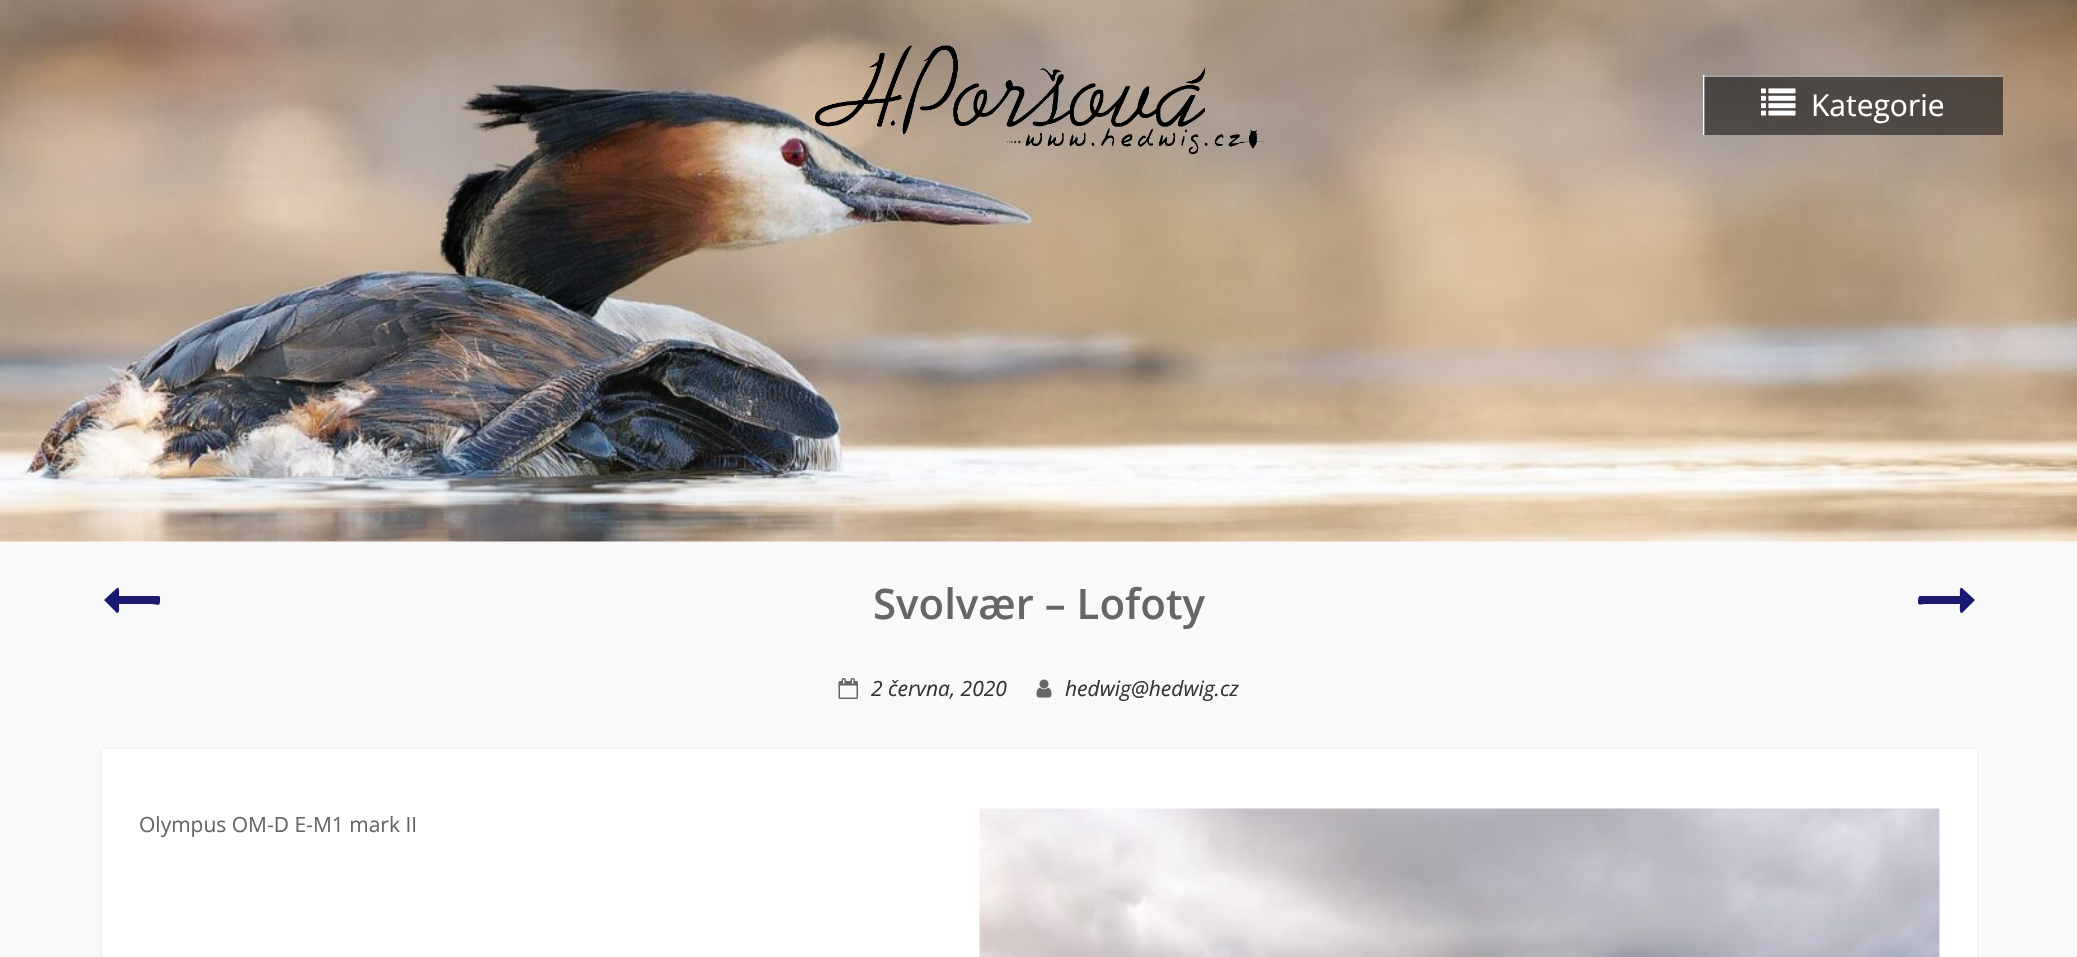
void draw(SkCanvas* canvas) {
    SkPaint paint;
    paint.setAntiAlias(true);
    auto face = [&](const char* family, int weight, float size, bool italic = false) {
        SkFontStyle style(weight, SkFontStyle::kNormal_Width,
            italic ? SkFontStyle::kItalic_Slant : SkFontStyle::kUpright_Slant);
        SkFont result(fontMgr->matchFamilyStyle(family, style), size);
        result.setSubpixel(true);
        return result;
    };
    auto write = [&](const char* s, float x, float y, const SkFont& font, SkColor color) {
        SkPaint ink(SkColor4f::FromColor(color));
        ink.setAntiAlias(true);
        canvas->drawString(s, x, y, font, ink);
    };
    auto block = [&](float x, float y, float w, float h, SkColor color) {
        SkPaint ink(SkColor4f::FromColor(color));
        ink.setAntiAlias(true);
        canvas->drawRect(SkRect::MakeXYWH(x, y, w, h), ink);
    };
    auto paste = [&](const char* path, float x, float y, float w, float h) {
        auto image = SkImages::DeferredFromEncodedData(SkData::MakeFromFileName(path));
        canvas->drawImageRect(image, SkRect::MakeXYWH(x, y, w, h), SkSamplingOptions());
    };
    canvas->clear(SkColorSetRGB(249, 249, 249));
    paste("pic1.png", 0, 0, 2077, 542);
    paste("pic2.png", 814, 45, 451, 110);
    block(1705, 75, 298, 60, SkColorSetARGB(48, 0, 0, 0));
    block(1703, 75, 2, 60, SK_ColorWHITE);
    block(1704, 75, 299, 60, SkColorSetARGB(125, 19, 18, 18));
    block(1704, 75, 299, 2, SkColorSetARGB(128, 255, 255, 255));
    paste("pic3.png", 1761, 88, 35, 28);
    auto kFont1 = face("Open Sans", 400, 30);
    write("Kategorie", 1811, 116, kFont1, SK_ColorWHITE);
    paint.setColor(SkColorSetRGB(25, 25, 112));
    canvas->drawPath(SkPathBuilder().moveTo(160, 597).cubicTo(160, 608, 161, 604, 146, 604).lineTo(119, 604).cubicTo(119, 605, 120, 614, 117, 613).lineTo(104, 600).lineTo(117, 588).cubicTo(120, 586, 119, 595, 119, 596).lineTo(159, 596).close().detach(), paint);
    auto kFont2 = face("Open Sans", 600, 42);
    write("Svolvær – Lofoty", 873, 619, kFont2, SkColorSetRGB(102, 102, 102));
    canvas->drawPath(SkPathBuilder().moveTo(1975, 600).lineTo(1962, 613).cubicTo(1959, 614, 1960, 605, 1960, 604).lineTo(1926, 604).cubicTo(1921, 604, 1918, 606, 1918, 602).cubicTo(1918, 601, 1918, 596, 1920, 596).lineTo(1960, 596).cubicTo(1960, 595, 1959, 586, 1962, 588).close().detach(), paint);
    paste("pic4.png", 838, 678, 20, 21);
    auto kFont3 = face("Open Sans", 400, 21, true);
    write("2 června, 2020", 871, 696, kFont3, SkColorSetRGB(51, 51, 51));
    paste("pic5.png", 1036, 679, 16, 19);
    write("hedwig@hedwig.cz", 1065, 696, kFont3, SkColorSetRGB(51, 51, 51));
    paint.setColor(SkColorSetRGB(221, 221, 221));
    paint.setMaskFilter(SkMaskFilter::MakeBlur(kNormal_SkBlurStyle, 1));
    canvas->drawRect(SkRect::MakeXYWH(102, 749, 1875, 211), paint);
    paint.setMaskFilter(nullptr);
    block(102, 749, 1875, 208, SK_ColorWHITE);
    auto kFont4 = face("Open Sans", 400, 21);
    write("Olympus OM-D E-M1 mark II", 139, 832, kFont4, SkColorSetRGB(102, 102, 102));
    paste("pic6.png", 979, 808, 961, 149);
}
